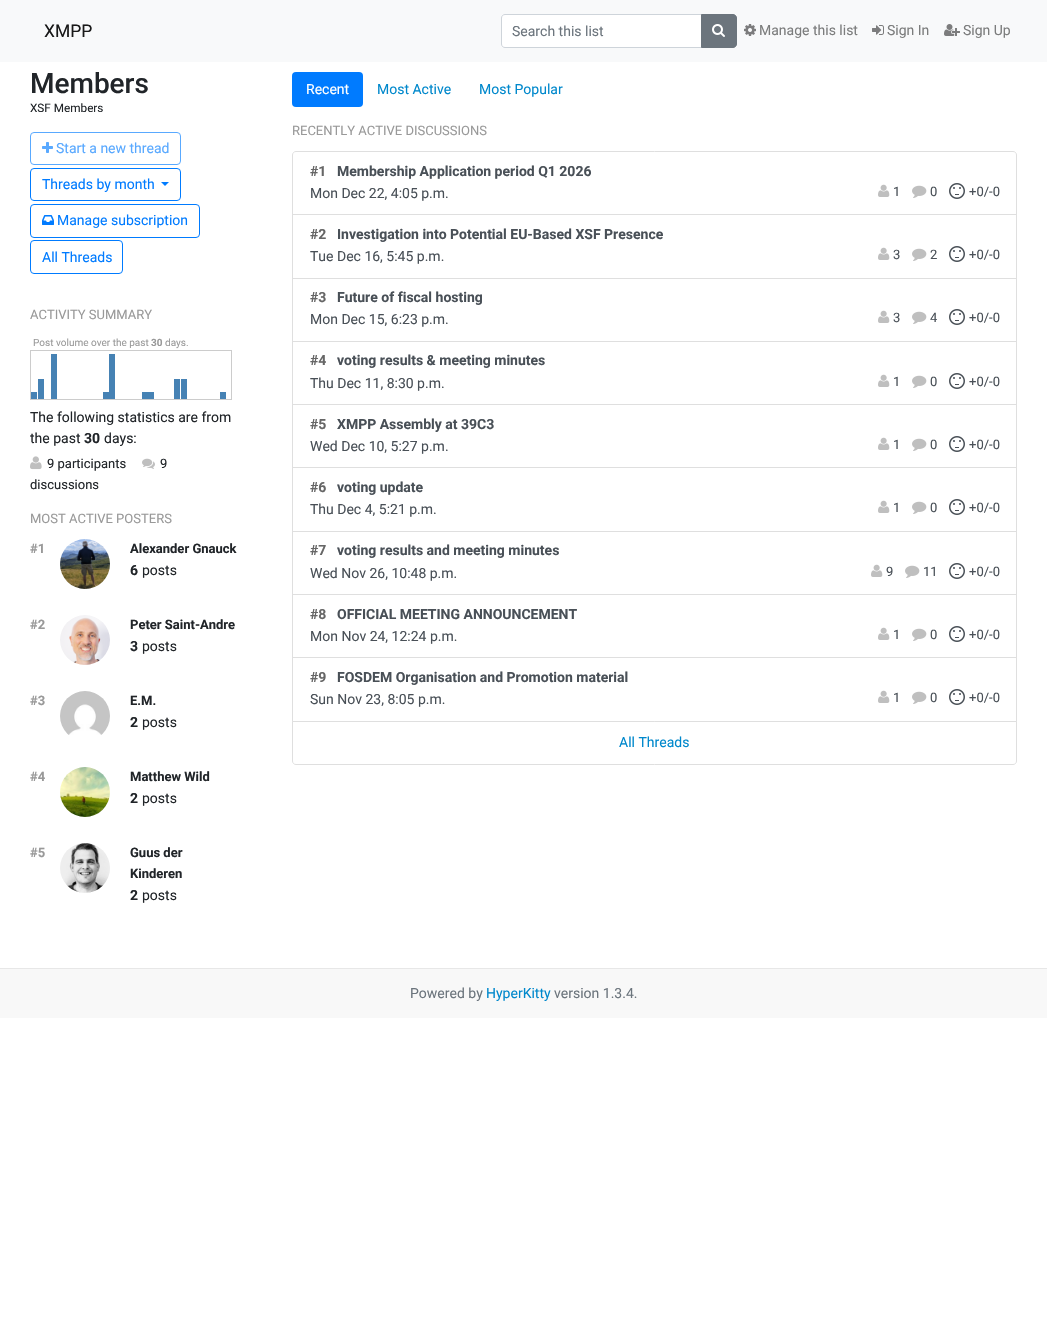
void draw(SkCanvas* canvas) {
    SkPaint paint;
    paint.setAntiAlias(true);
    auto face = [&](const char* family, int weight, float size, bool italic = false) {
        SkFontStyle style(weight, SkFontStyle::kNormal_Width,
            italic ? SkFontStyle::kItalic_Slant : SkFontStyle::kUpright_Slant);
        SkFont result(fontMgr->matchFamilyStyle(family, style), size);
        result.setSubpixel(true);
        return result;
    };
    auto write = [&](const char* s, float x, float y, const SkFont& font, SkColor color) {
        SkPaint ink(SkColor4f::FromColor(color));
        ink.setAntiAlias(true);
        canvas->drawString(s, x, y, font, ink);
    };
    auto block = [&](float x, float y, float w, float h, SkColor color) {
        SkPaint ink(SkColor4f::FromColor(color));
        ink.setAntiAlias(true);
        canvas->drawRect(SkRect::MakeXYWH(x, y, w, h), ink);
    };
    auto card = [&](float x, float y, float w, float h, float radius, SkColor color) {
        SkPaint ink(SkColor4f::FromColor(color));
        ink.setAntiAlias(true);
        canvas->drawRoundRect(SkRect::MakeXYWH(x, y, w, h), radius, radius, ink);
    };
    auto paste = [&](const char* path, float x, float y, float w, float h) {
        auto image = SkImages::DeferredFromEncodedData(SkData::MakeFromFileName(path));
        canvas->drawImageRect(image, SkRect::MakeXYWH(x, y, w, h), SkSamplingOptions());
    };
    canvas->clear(SK_ColorWHITE);
    block(0, 0, 1047, 62, SkColorSetRGB(248, 249, 250));
    auto kFont1 = face("Roboto", 400, 17.5f);
    write("XMPP", 44, 37, kFont1, SkColorSetRGB(25, 25, 25));
    paint.setColor(SK_ColorWHITE);
    canvas->drawPath(SkPathBuilder().moveTo(504.5f, 15).lineTo(701, 15).lineTo(701, 47).lineTo(504.5f, 47).cubicTo(503, 47, 502, 46, 502, 44.5f).lineTo(502, 17.5f).cubicTo(502, 16, 503, 15, 504.5f, 15).close().detach(), paint);
    paint.setStyle(SkPaint::kStroke_Style);
    paint.setStrokeWidth(1);
    paint.setColor(SkColorSetRGB(206, 212, 218));
    canvas->drawPath(SkPathBuilder().moveTo(505, 14.5f).lineTo(701.5f, 14.5f).lineTo(701.5f, 47.5f).lineTo(505, 47.5f).cubicTo(503, 47.5f, 501.5f, 46, 501.5f, 44).lineTo(501.5f, 18).cubicTo(501.5f, 16, 503, 14.5f, 505, 14.5f).close().detach(), paint);
    auto kFont2 = face("Roboto", 400, 14);
    write("Search this list", 512, 36, kFont2, SkColorSetRGB(108, 117, 125));
    paint.setStyle(SkPaint::kFill_Style);
    paint.setColor(SkColorSetRGB(108, 117, 125));
    canvas->drawPath(SkPathBuilder().moveTo(701.5f, 14.5f).lineTo(733, 14.5f).cubicTo(735, 14.5f, 736.5f, 16, 736.5f, 18).lineTo(736.5f, 44).cubicTo(736.5f, 46, 735, 47.5f, 733, 47.5f).lineTo(701.5f, 47.5f).close().detach(), paint);
    paint.setStyle(SkPaint::kStroke_Style);
    canvas->drawPath(SkPathBuilder().moveTo(701.5f, 14.5f).lineTo(733, 14.5f).cubicTo(735, 14.5f, 736.5f, 16, 736.5f, 18).lineTo(736.5f, 44).cubicTo(736.5f, 46, 735, 47.5f, 733, 47.5f).lineTo(701.5f, 47.5f).close().detach(), paint);
    paste("pic1.png", 712, 24, 13, 13);
    paste("pic2.png", 744, 24, 12, 12);
    write("Manage this list", 759, 35, kFont2, SkColorSetRGB(124, 125, 125));
    paste("pic3.png", 872, 25, 12, 10);
    write("Sign In", 887, 35, kFont2, SkColorSetRGB(124, 125, 125));
    paste("pic4.png", 944, 24, 16, 12);
    write("Sign Up", 963, 35, kFont2, SkColorSetRGB(124, 125, 125));
    auto kFont3 = face("Roboto", 500, 28);
    write("Members", 30, 93, kFont3, SkColorSetRGB(33, 37, 41));
    auto kFont4 = face("Roboto", 400, 11.75f);
    write("XSF Members", 30, 112, kFont4, SkColorSetRGB(33, 37, 41));
    paint.setColor(SkColorSetRGB(89, 169, 255));
    canvas->drawRoundRect(SkRect::MakeXYWH(30.5f, 132.5f, 150, 32), 3.5f, 3.5f, paint);
    paste("pic5.png", 42, 142, 11, 11);
    write("Start a new thread", 56, 153, kFont2, SkColorSetRGB(89, 169, 255));
    paint.setColor(SkColorSetRGB(0, 123, 255));
    canvas->drawRoundRect(SkRect::MakeXYWH(30.5f, 168.5f, 150, 32), 3.5f, 3.5f, paint);
    write("Threads by month", 42, 189, kFont2, SkColorSetRGB(0, 123, 255));
    paint.setStyle(SkPaint::kFill_Style);
    canvas->drawPath(SkPathBuilder().moveTo(161, 182).lineTo(169, 182).lineTo(165, 186).close().detach(), paint);
    paint.setStyle(SkPaint::kStroke_Style);
    canvas->drawRoundRect(SkRect::MakeXYWH(30.5f, 204.5f, 169, 33), 3.5f, 3.5f, paint);
    paste("pic6.png", 42, 215, 12, 10);
    write("Manage subscription", 57, 225, kFont2, SkColorSetRGB(0, 123, 255));
    canvas->drawRoundRect(SkRect::MakeXYWH(30.5f, 240.5f, 92, 33), 3.5f, 3.5f, paint);
    write("All Threads", 42, 262, kFont2, SkColorSetRGB(0, 123, 255));
    auto kFont5 = face("Roboto", 400, 13);
    write("ACTIVITY SUMMARY", 30, 319, kFont5, SkColorSetRGB(153, 153, 153));
    auto kFont6 = face("Roboto", 400, 10);
    write("Post volume over the past", 33, 346, kFont6, SkColorSetRGB(153, 153, 153));
    auto kFont7 = face("Roboto", 700, 10);
    write("30", 151, 346, kFont7, SkColorSetRGB(153, 153, 153));
    write("days.", 165, 346, kFont6, SkColorSetRGB(153, 153, 153));
    paint.setColor(SkColorSetRGB(204, 204, 204));
    canvas->drawRect(SkRect::MakeXYWH(30.5f, 350.5f, 201, 49), paint);
    block(31, 392, 6, 7, SkColorSetRGB(70, 130, 180));
    block(38, 379, 6, 20, SkColorSetRGB(70, 130, 180));
    block(51, 354, 6, 45, SkColorSetRGB(70, 130, 180));
    block(103, 392, 6, 7, SkColorSetRGB(70, 130, 180));
    block(109, 354, 6, 45, SkColorSetRGB(70, 130, 180));
    block(142, 392, 12, 7, SkColorSetRGB(70, 130, 180));
    block(174, 379, 6, 20, SkColorSetRGB(70, 130, 180));
    block(181, 379, 6, 20, SkColorSetRGB(70, 130, 180));
    block(220, 392, 6, 7, SkColorSetRGB(70, 130, 180));
    write("The following statistics are from", 30, 422, kFont2, SkColorSetRGB(33, 37, 41));
    write("the past", 30, 443, kFont2, SkColorSetRGB(33, 37, 41));
    auto kFont8 = face("Roboto", 700, 14);
    write("30", 84, 443, kFont8, SkColorSetRGB(33, 37, 41));
    write("days:", 104, 443, kFont2, SkColorSetRGB(33, 37, 41));
    paste("pic7.png", 142, 458, 13, 11);
    write("9", 160, 468, kFont5, SkColorSetRGB(33, 37, 41));
    write("discussions", 30, 489, kFont5, SkColorSetRGB(33, 37, 41));
    paste("pic8.png", 30, 456, 12, 14);
    write("9 participants", 47, 468, kFont5, SkColorSetRGB(33, 37, 41));
    write("MOST ACTIVE POSTERS", 30, 523, kFont5, SkColorSetRGB(153, 153, 153));
    auto kFont9 = face("Roboto", 700, 13);
    write("#1", 30, 553, kFont9, SkColorSetRGB(153, 153, 153));
    paste("pic9.png", 60, 539, 50, 50);
    write("Alexander Gnauck", 130, 553, kFont9, SkColorSetRGB(33, 37, 41));
    write("6", 130, 575, kFont8, SkColorSetRGB(33, 37, 41));
    write("posts", 142, 575, kFont2, SkColorSetRGB(33, 37, 41));
    write("#2", 30, 629, kFont9, SkColorSetRGB(153, 153, 153));
    paste("pic10.png", 60, 615, 50, 50);
    write("Peter Saint-Andre", 130, 629, kFont9, SkColorSetRGB(33, 37, 41));
    write("3", 130, 651, kFont8, SkColorSetRGB(33, 37, 41));
    write("posts", 142, 651, kFont2, SkColorSetRGB(33, 37, 41));
    write("#3", 30, 705, kFont9, SkColorSetRGB(153, 153, 153));
    paste("pic11.png", 60, 691, 50, 44);
    write("E.M.", 130, 705, kFont9, SkColorSetRGB(33, 37, 41));
    write("2", 130, 727, kFont8, SkColorSetRGB(33, 37, 41));
    write("posts", 142, 727, kFont2, SkColorSetRGB(33, 37, 41));
    write("#4", 30, 781, kFont9, SkColorSetRGB(153, 153, 153));
    paste("pic12.png", 60, 767, 50, 50);
    write("Matthew Wild", 130, 781, kFont9, SkColorSetRGB(33, 37, 41));
    write("2", 130, 803, kFont8, SkColorSetRGB(33, 37, 41));
    write("posts", 142, 803, kFont2, SkColorSetRGB(33, 37, 41));
    write("#5", 30, 857, kFont9, SkColorSetRGB(153, 153, 153));
    paste("pic13.png", 60, 843, 50, 50);
    write("Guus der", 130, 857, kFont9, SkColorSetRGB(33, 37, 41));
    write("Kinderen", 130, 878, kFont9, SkColorSetRGB(33, 37, 41));
    write("2", 130, 900, kFont8, SkColorSetRGB(33, 37, 41));
    write("posts", 142, 900, kFont2, SkColorSetRGB(33, 37, 41));
    card(292, 72, 71, 35, 4, SkColorSetRGB(0, 123, 255));
    write("Recent", 306, 94, kFont2, SK_ColorWHITE);
    write("Most Active", 377, 94, kFont2, SkColorSetRGB(0, 136, 204));
    write("Most Popular", 479, 94, kFont2, SkColorSetRGB(0, 136, 204));
    write("RECENTLY ACTIVE DISCUSSIONS", 292, 135, kFont5, SkColorSetRGB(153, 153, 153));
    paint.setColor(SkColorSetRGB(223, 223, 223));
    canvas->drawPath(SkPathBuilder().moveTo(296, 151.5f).lineTo(1013, 151.5f).cubicTo(1015, 151.5f, 1016.5f, 153, 1016.5f, 155).lineTo(1016.5f, 214.5f).lineTo(292.5f, 214.5f).lineTo(292.5f, 155).cubicTo(292.5f, 153, 294, 151.5f, 296, 151.5f).close().detach(), paint);
    write("#1", 310, 176, kFont8, SkColorSetRGB(102, 102, 102));
    write("Membership Application period Q1 2026", 337, 176, kFont8, SkColorSetRGB(73, 80, 87));
    write("Mon Dec 22, 4:05 p.m.", 310, 198, kFont2, SkColorSetRGB(73, 80, 87));
    paste("pic14.png", 878, 184, 12, 13);
    write("1", 893, 196, kFont5, SkColorSetRGB(73, 80, 87));
    paste("pic15.png", 912, 185, 15, 13);
    write("0", 930, 196, kFont5, SkColorSetRGB(73, 80, 87));
    paste("pic16.png", 949, 183, 16, 16);
    write("+0/-0", 969, 196, kFont5, SkColorSetRGB(73, 80, 87));
    canvas->drawRect(SkRect::MakeXYWH(292.5f, 214.5f, 724, 64), paint);
    write("#2", 310, 239, kFont8, SkColorSetRGB(102, 102, 102));
    write("Investigation into Potential EU-Based XSF Presence", 337, 239, kFont8, SkColorSetRGB(73, 80, 87));
    write("Tue Dec 16, 5:45 p.m.", 310, 261, kFont2, SkColorSetRGB(73, 80, 87));
    paste("pic14.png", 878, 247, 12, 13);
    write("3", 893, 259, kFont5, SkColorSetRGB(73, 80, 87));
    paste("pic15.png", 912, 248, 15, 13);
    write("2", 930, 259, kFont5, SkColorSetRGB(73, 80, 87));
    paste("pic16.png", 949, 246, 16, 16);
    write("+0/-0", 969, 259, kFont5, SkColorSetRGB(73, 80, 87));
    canvas->drawRect(SkRect::MakeXYWH(292.5f, 278.5f, 724, 63), paint);
    write("#3", 310, 302, kFont8, SkColorSetRGB(102, 102, 102));
    write("Future of fiscal hosting", 337, 302, kFont8, SkColorSetRGB(73, 80, 87));
    write("Mon Dec 15, 6:23 p.m.", 310, 324, kFont2, SkColorSetRGB(73, 80, 87));
    paste("pic14.png", 878, 310, 12, 13);
    write("3", 893, 322, kFont5, SkColorSetRGB(73, 80, 87));
    paste("pic15.png", 912, 311, 15, 13);
    write("4", 930, 322, kFont5, SkColorSetRGB(73, 80, 87));
    paste("pic16.png", 949, 309, 16, 16);
    write("+0/-0", 969, 322, kFont5, SkColorSetRGB(73, 80, 87));
    canvas->drawRect(SkRect::MakeXYWH(292.5f, 341.5f, 724, 63), paint);
    write("#4", 310, 365, kFont8, SkColorSetRGB(102, 102, 102));
    write("voting results & meeting minutes", 337, 365, kFont8, SkColorSetRGB(73, 80, 87));
    write("Thu Dec 11, 8:30 p.m.", 310, 388, kFont2, SkColorSetRGB(73, 80, 87));
    paste("pic14.png", 878, 374, 12, 13);
    write("1", 893, 386, kFont5, SkColorSetRGB(73, 80, 87));
    paste("pic15.png", 912, 375, 15, 13);
    write("0", 930, 386, kFont5, SkColorSetRGB(73, 80, 87));
    paste("pic16.png", 949, 373, 16, 16);
    write("+0/-0", 969, 386, kFont5, SkColorSetRGB(73, 80, 87));
    canvas->drawRect(SkRect::MakeXYWH(292.5f, 404.5f, 724, 63), paint);
    write("#5", 310, 429, kFont8, SkColorSetRGB(102, 102, 102));
    write("XMPP Assembly at 39C3", 337, 429, kFont8, SkColorSetRGB(73, 80, 87));
    write("Wed Dec 10, 5:27 p.m.", 310, 451, kFont2, SkColorSetRGB(73, 80, 87));
    paste("pic14.png", 878, 437, 12, 13);
    write("1", 893, 449, kFont5, SkColorSetRGB(73, 80, 87));
    paste("pic15.png", 912, 438, 15, 13);
    write("0", 930, 449, kFont5, SkColorSetRGB(73, 80, 87));
    paste("pic16.png", 949, 436, 16, 16);
    write("+0/-0", 969, 449, kFont5, SkColorSetRGB(73, 80, 87));
    canvas->drawRect(SkRect::MakeXYWH(292.5f, 467.5f, 724, 64), paint);
    write("#6", 310, 492, kFont8, SkColorSetRGB(102, 102, 102));
    write("voting update", 337, 492, kFont8, SkColorSetRGB(73, 80, 87));
    write("Thu Dec 4, 5:21 p.m.", 310, 514, kFont2, SkColorSetRGB(73, 80, 87));
    paste("pic14.png", 878, 500, 12, 13);
    write("1", 893, 512, kFont5, SkColorSetRGB(73, 80, 87));
    paste("pic15.png", 912, 501, 15, 13);
    write("0", 930, 512, kFont5, SkColorSetRGB(73, 80, 87));
    paste("pic16.png", 949, 499, 16, 16);
    write("+0/-0", 969, 512, kFont5, SkColorSetRGB(73, 80, 87));
    canvas->drawRect(SkRect::MakeXYWH(292.5f, 531.5f, 724, 63), paint);
    write("#7", 310, 555, kFont8, SkColorSetRGB(102, 102, 102));
    write("voting results and meeting minutes", 337, 555, kFont8, SkColorSetRGB(73, 80, 87));
    write("Wed Nov 26, 10:48 p.m.", 310, 578, kFont2, SkColorSetRGB(73, 80, 87));
    paste("pic14.png", 871, 564, 12, 13);
    write("9", 886, 576, kFont5, SkColorSetRGB(73, 80, 87));
    paste("pic15.png", 905, 565, 15, 13);
    write("11", 923, 576, kFont5, SkColorSetRGB(73, 80, 87));
    paste("pic16.png", 949, 563, 16, 16);
    write("+0/-0", 969, 576, kFont5, SkColorSetRGB(73, 80, 87));
    canvas->drawRect(SkRect::MakeXYWH(292.5f, 594.5f, 724, 63), paint);
    write("#8", 310, 619, kFont8, SkColorSetRGB(102, 102, 102));
    write("OFFICIAL MEETING ANNOUNCEMENT", 337, 619, kFont8, SkColorSetRGB(73, 80, 87));
    write("Mon Nov 24, 12:24 p.m.", 310, 641, kFont2, SkColorSetRGB(73, 80, 87));
    paste("pic14.png", 878, 627, 12, 13);
    write("1", 893, 639, kFont5, SkColorSetRGB(73, 80, 87));
    paste("pic15.png", 912, 628, 15, 13);
    write("0", 930, 639, kFont5, SkColorSetRGB(73, 80, 87));
    paste("pic16.png", 949, 626, 16, 16);
    write("+0/-0", 969, 639, kFont5, SkColorSetRGB(73, 80, 87));
    canvas->drawRect(SkRect::MakeXYWH(292.5f, 657.5f, 724, 64), paint);
    write("#9", 310, 682, kFont8, SkColorSetRGB(102, 102, 102));
    write("FOSDEM Organisation and Promotion material", 337, 682, kFont8, SkColorSetRGB(73, 80, 87));
    write("Sun Nov 23, 8:05 p.m.", 310, 704, kFont2, SkColorSetRGB(73, 80, 87));
    paste("pic14.png", 878, 690, 12, 13);
    write("1", 893, 702, kFont5, SkColorSetRGB(73, 80, 87));
    paste("pic15.png", 912, 691, 15, 13);
    write("0", 930, 702, kFont5, SkColorSetRGB(73, 80, 87));
    paste("pic16.png", 949, 689, 16, 16);
    write("+0/-0", 969, 702, kFont5, SkColorSetRGB(73, 80, 87));
    paint.setStyle(SkPaint::kFill_Style);
    paint.setColor(SK_ColorWHITE);
    canvas->drawPath(SkPathBuilder().moveTo(292.5f, 721.5f).lineTo(1016.5f, 721.5f).lineTo(1016.5f, 761).cubicTo(1016.5f, 763, 1015, 764.5f, 1013, 764.5f).lineTo(296, 764.5f).cubicTo(294, 764.5f, 292.5f, 763, 292.5f, 761).close().detach(), paint);
    paint.setStyle(SkPaint::kStroke_Style);
    paint.setColor(SkColorSetRGB(223, 223, 223));
    canvas->drawPath(SkPathBuilder().moveTo(292.5f, 721.5f).lineTo(1016.5f, 721.5f).lineTo(1016.5f, 761).cubicTo(1016.5f, 763, 1015, 764.5f, 1013, 764.5f).lineTo(296, 764.5f).cubicTo(294, 764.5f, 292.5f, 763, 292.5f, 761).close().detach(), paint);
    write("All Threads", 619, 747, kFont2, SkColorSetRGB(0, 136, 204));
    block(0, 969, 1047, 49, SkColorSetRGB(248, 248, 248));
    block(0, 968, 1047, 1, SkColorSetRGB(231, 231, 231));
    write("Powered by", 410, 998, kFont2, SkColorSetRGB(108, 117, 125));
    write("HyperKitty", 486, 998, kFont2, SkColorSetRGB(0, 136, 204));
    write("version 1.3.4.", 554, 998, kFont2, SkColorSetRGB(108, 117, 125));
}
